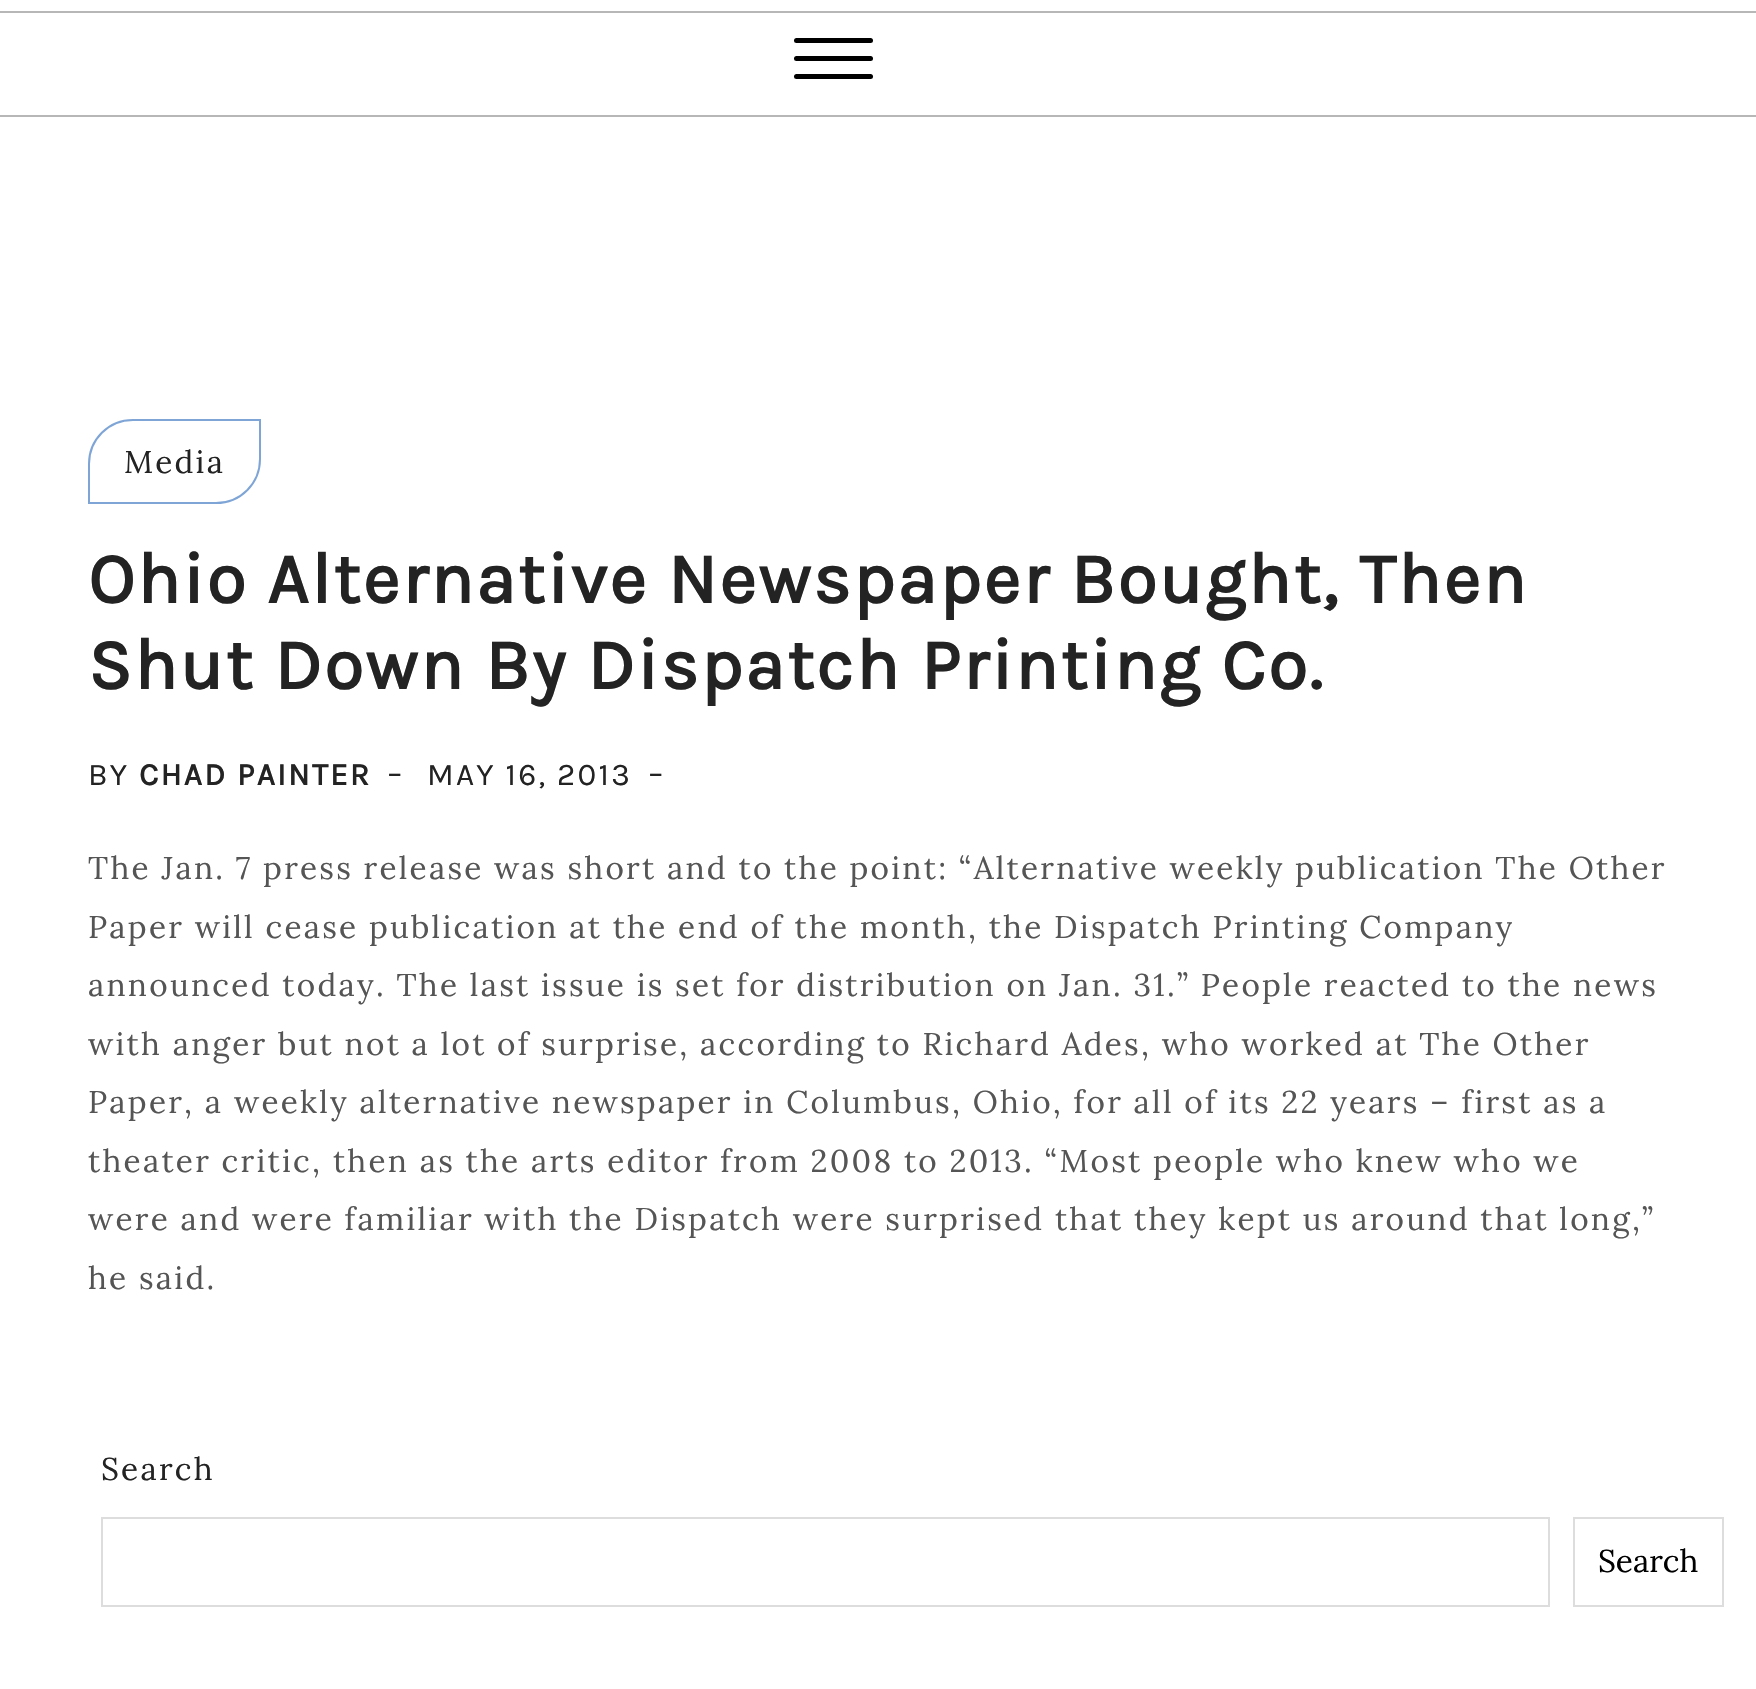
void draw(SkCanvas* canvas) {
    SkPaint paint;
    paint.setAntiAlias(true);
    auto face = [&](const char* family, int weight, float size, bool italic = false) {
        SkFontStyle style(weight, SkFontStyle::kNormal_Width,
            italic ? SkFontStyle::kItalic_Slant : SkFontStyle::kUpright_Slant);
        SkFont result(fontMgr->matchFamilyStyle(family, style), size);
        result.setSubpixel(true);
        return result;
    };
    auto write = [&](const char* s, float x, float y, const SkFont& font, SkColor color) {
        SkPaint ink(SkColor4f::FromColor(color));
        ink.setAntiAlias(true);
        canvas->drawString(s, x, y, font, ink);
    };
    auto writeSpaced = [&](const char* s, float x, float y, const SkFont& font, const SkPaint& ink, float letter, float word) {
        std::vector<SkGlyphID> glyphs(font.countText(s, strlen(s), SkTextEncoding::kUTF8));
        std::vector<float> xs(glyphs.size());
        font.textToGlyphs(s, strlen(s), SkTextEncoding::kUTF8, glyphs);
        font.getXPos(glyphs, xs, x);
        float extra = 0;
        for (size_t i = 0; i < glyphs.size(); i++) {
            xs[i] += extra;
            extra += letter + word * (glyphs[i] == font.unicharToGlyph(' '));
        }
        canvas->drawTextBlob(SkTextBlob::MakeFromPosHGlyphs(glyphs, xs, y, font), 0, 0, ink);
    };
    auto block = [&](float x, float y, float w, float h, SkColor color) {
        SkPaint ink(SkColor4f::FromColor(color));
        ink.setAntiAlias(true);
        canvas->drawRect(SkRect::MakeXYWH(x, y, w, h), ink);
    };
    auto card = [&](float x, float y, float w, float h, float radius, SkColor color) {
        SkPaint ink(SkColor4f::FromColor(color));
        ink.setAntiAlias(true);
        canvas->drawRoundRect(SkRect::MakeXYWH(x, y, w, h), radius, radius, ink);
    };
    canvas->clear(SK_ColorWHITE);
    block(0, 11, 1756, 2, SkColorSetRGB(183, 183, 183));
    block(0, 115, 1756, 2, SkColorSetRGB(183, 183, 183));
    card(794, 38, 79, 5, 2.5f, SK_ColorBLACK);
    card(794, 56, 79, 5, 2.5f, SK_ColorBLACK);
    card(794, 74, 79, 5, 2.5f, SK_ColorBLACK);
    paint.setStyle(SkPaint::kStroke_Style);
    paint.setStrokeWidth(2);
    paint.setColor(SkColorSetRGB(126, 165, 214));
    canvas->drawPath(SkPathBuilder().moveTo(133, 420).lineTo(260, 420).lineTo(260, 459).cubicTo(260, 483.5f, 240.5f, 503, 216, 503).lineTo(89, 503).lineTo(89, 464).cubicTo(89, 439.5f, 108.5f, 420, 133, 420).close().detach(), paint);
    auto kFont1 = face("Lora", 400, 31.5f);
    paint.setStyle(SkPaint::kFill_Style);
    paint.setColor(SkColorSetRGB(35, 35, 35));
    writeSpaced("Media", 124, 473, kFont1, paint, 2.25f, 0);
    auto kFont2 = face("Karla", 700, 72);
    writeSpaced("Ohio Alternative Newspaper Bought, Then", 88, 603, kFont2, paint, 2.25f, 0);
    writeSpaced("Shut Down By Dispatch Printing Co.", 88, 689, kFont2, paint, 2.25f, 0);
    auto kFont3 = face("Karla", 400, 31.5f);
    writeSpaced("BY", 88, 785, kFont3, paint, 2.25f, 0);
    auto kFont4 = face("Karla", 700, 31.5f);
    writeSpaced("CHAD PAINTER", 139, 785, kFont4, paint, 2.25f, 0);
    writeSpaced("-", 387, 785, kFont1, paint, 2.25f, 0);
    writeSpaced("MAY 16, 2013", 427, 785, kFont3, paint, 2.25f, 0);
    writeSpaced("-", 648, 785, kFont1, paint, 2.25f, 0);
    paint.setColor(SkColorSetRGB(85, 85, 85));
    writeSpaced("The Jan. 7 press release was short and to the point: “Alternative weekly publication The Other", 88, 879, kFont1, paint, 2.25f, 0);
    writeSpaced("Paper will cease publication at the end of the month, the Dispatch Printing Company", 88, 938, kFont1, paint, 2.25f, 0);
    writeSpaced("announced today. The last issue is set for distribution on Jan. 31.” People reacted to the news", 88, 996, kFont1, paint, 2.25f, 0);
    writeSpaced("with anger but not a lot of surprise, according to Richard Ades, who worked at The Other", 88, 1055, kFont1, paint, 2.25f, 0);
    writeSpaced("Paper, a weekly alternative newspaper in Columbus, Ohio, for all of its 22 years – first as a", 88, 1113, kFont1, paint, 2.25f, 0);
    writeSpaced("theater critic, then as the arts editor from 2008 to 2013. “Most people who knew who we", 88, 1172, kFont1, paint, 2.25f, 0);
    writeSpaced("were and were familiar with the Dispatch were surprised that they kept us around that long,”", 88, 1230, kFont1, paint, 2.25f, 0);
    writeSpaced("he said.", 88, 1289, kFont1, paint, 2.25f, 0);
    paint.setColor(SkColorSetRGB(35, 35, 35));
    writeSpaced("Search", 101, 1480, kFont1, paint, 2.25f, 0);
    paint.setStyle(SkPaint::kStroke_Style);
    paint.setColor(SkColorSetRGB(221, 221, 221));
    canvas->drawRect(SkRect::MakeXYWH(102, 1518, 1447, 88), paint);
    canvas->drawRect(SkRect::MakeXYWH(1574, 1518, 149, 88), paint);
    write("Search", 1598, 1572, kFont1, SK_ColorBLACK);
}
